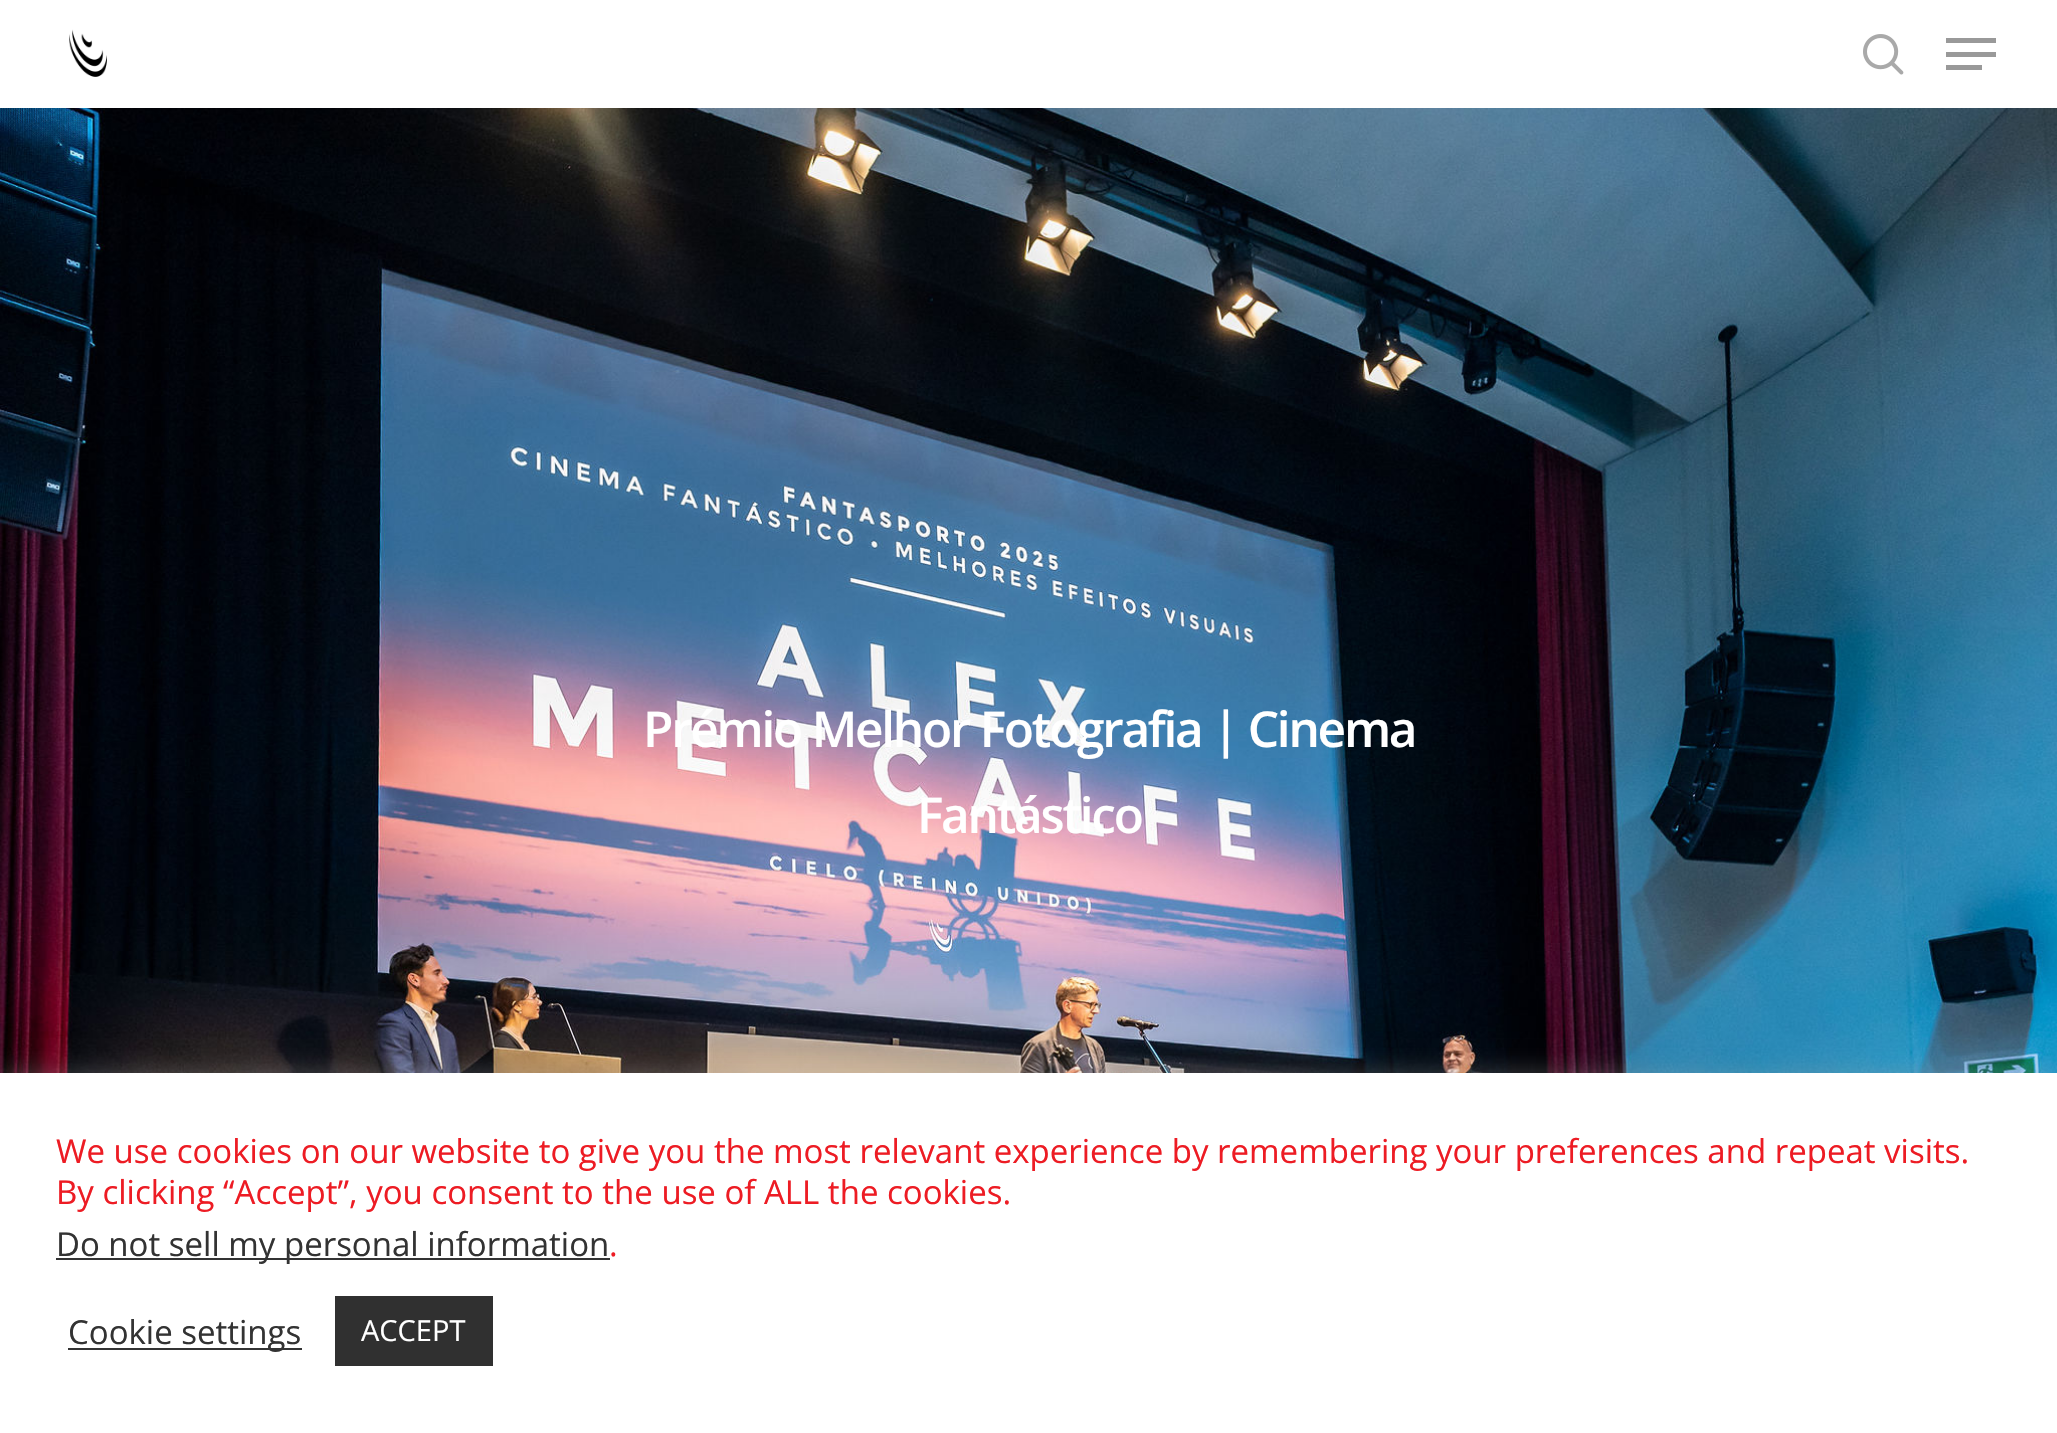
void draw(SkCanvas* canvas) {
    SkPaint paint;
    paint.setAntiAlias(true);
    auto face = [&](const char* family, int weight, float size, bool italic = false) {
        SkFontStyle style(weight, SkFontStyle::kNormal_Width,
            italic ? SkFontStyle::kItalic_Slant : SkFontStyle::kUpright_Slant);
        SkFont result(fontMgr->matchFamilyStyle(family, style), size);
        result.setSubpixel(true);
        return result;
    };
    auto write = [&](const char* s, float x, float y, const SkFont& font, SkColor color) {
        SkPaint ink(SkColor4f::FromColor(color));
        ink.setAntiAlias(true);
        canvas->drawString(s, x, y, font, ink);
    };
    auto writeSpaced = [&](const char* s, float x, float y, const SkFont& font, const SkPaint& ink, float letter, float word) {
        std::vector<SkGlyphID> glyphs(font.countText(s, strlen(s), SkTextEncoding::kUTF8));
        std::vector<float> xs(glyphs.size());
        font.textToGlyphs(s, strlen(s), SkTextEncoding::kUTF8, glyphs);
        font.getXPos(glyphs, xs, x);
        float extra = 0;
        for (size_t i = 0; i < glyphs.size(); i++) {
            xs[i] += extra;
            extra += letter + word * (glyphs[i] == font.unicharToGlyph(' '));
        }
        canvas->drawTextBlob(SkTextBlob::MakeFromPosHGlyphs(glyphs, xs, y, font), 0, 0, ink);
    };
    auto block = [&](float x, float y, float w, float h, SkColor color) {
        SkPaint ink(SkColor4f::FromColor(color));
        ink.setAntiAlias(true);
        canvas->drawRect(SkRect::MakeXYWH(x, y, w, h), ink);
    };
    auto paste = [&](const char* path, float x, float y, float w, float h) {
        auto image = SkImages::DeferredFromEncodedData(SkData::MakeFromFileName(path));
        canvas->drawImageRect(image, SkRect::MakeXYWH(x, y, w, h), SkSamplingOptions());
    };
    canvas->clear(SK_ColorWHITE);
    paste("pic1.png", 69, 29, 38, 48);
    paste("pic2.png", 1863, 34, 41, 41);
    block(1946, 38, 50, 5, SkColorSetRGB(153, 153, 153));
    block(1946, 65, 36, 5, SkColorSetRGB(153, 153, 153));
    block(1946, 52, 50, 5, SkColorSetRGB(153, 153, 153));
    paste("pic3.png", 0, 108, 2057, 965);
    auto kFont1 = face("Open Sans", 600, 49.5f);
    paint.setColor(SK_ColorWHITE);
    writeSpaced("Prémio Melhor Fotografia | Cinema", 643, 747, kFont1, paint, -2.25f, 0);
    writeSpaced("Fantástico", 917, 833, kFont1, paint, -2.25f, 0);
    paint.setColor(SkColorSetARGB(77, 172, 171, 171));
    paint.setMaskFilter(SkMaskFilter::MakeBlur(kNormal_SkBlurStyle, 11));
    canvas->drawRect(SkRect::MakeXYWH(0, 1071, 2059, 360), paint);
    paint.setMaskFilter(nullptr);
    block(0, 1073, 2057, 360, SK_ColorWHITE);
    auto kFont2 = face("Open Sans", 400, 33);
    write("We use cookies on our website to give you the most relevant experience by remembering your preferences and repeat visits.", 56, 1163, kFont2, SkColorSetRGB(237, 28, 36));
    write("By clicking “Accept”, you consent to the use of ALL the cookies.", 56, 1204, kFont2, SkColorSetRGB(237, 28, 36));
    block(56, 1258, 554, 2, SkColorSetRGB(51, 51, 51));
    write("Do not sell my personal information", 56, 1256, kFont2, SkColorSetRGB(51, 51, 51));
    write(".", 609, 1256, kFont2, SkColorSetRGB(237, 28, 36));
    block(68, 1348, 234, 2, SkColorSetRGB(51, 51, 51));
    write("Cookie settings", 68, 1344, kFont2, SkColorSetRGB(51, 51, 51));
    block(335, 1296, 158, 70, SkColorSetRGB(48, 48, 48));
    auto kFont3 = face("Open Sans", 400, 29);
    write("ACCEPT", 361, 1341, kFont3, SK_ColorWHITE);
}
